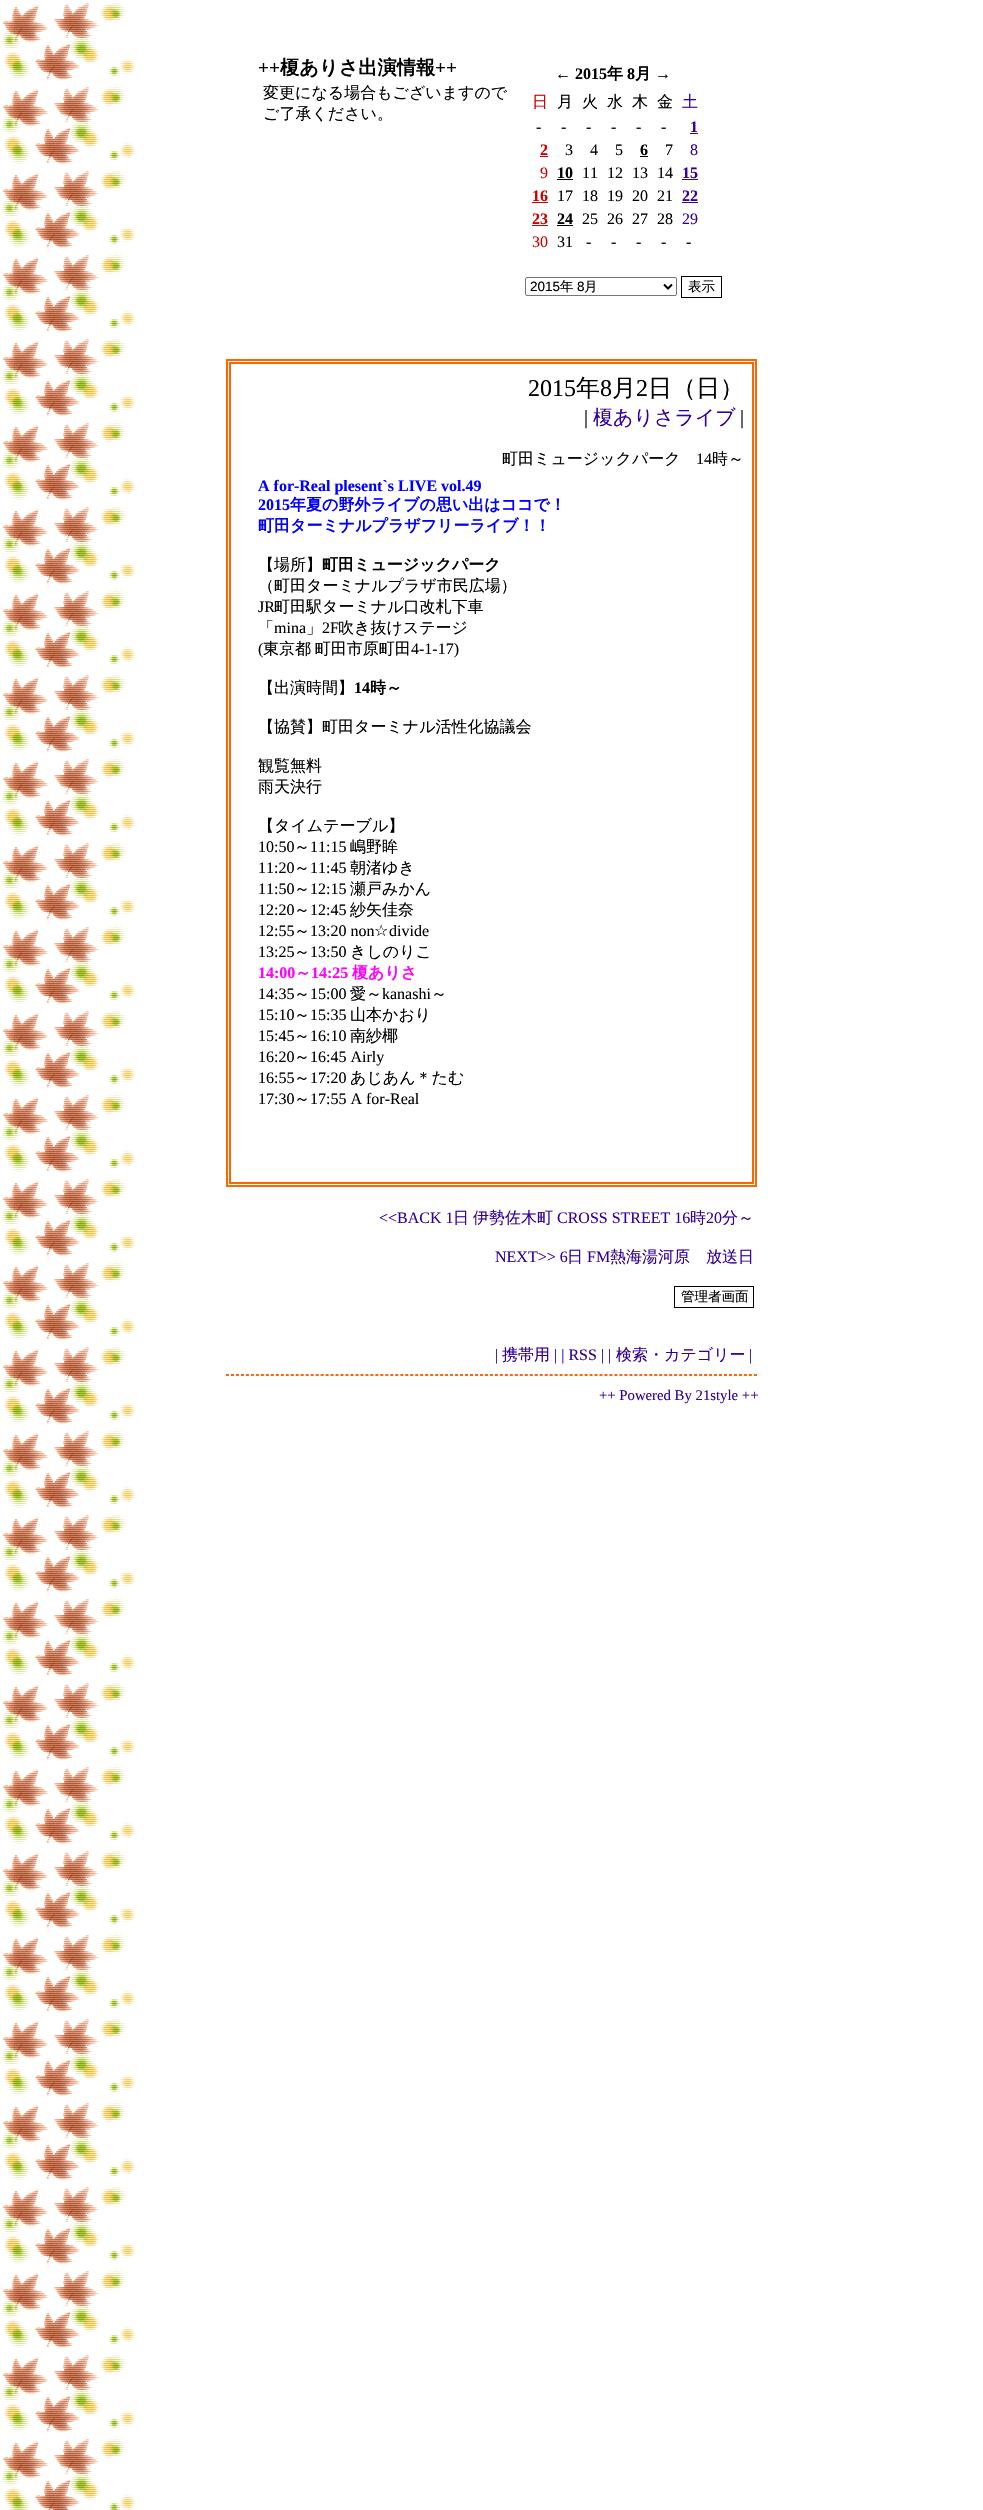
void draw(SkCanvas* canvas) {
    SkPaint paint;
    paint.setAntiAlias(true);
    auto face = [&](const char* family, int weight, float size, bool italic = false) {
        SkFontStyle style(weight, SkFontStyle::kNormal_Width,
            italic ? SkFontStyle::kItalic_Slant : SkFontStyle::kUpright_Slant);
        SkFont result(fontMgr->matchFamilyStyle(family, style), size);
        result.setSubpixel(true);
        return result;
    };
    auto write = [&](const char* s, float x, float y, const SkFont& font, SkColor color) {
        SkPaint ink(SkColor4f::FromColor(color));
        ink.setAntiAlias(true);
        canvas->drawString(s, x, y, font, ink);
    };
    auto writeSpaced = [&](const char* s, float x, float y, const SkFont& font, const SkPaint& ink, float letter, float word) {
        std::vector<SkGlyphID> glyphs(font.countText(s, strlen(s), SkTextEncoding::kUTF8));
        std::vector<float> xs(glyphs.size());
        font.textToGlyphs(s, strlen(s), SkTextEncoding::kUTF8, glyphs);
        font.getXPos(glyphs, xs, x);
        float extra = 0;
        for (size_t i = 0; i < glyphs.size(); i++) {
            xs[i] += extra;
            extra += letter + word * (glyphs[i] == font.unicharToGlyph(' '));
        }
        canvas->drawTextBlob(SkTextBlob::MakeFromPosHGlyphs(glyphs, xs, y, font), 0, 0, ink);
    };
    auto block = [&](float x, float y, float w, float h, SkColor color) {
        SkPaint ink(SkColor4f::FromColor(color));
        ink.setAntiAlias(true);
        canvas->drawRect(SkRect::MakeXYWH(x, y, w, h), ink);
    };
    auto paste = [&](const char* path, float x, float y, float w, float h) {
        auto image = SkImages::DeferredFromEncodedData(SkData::MakeFromFileName(path));
        canvas->drawImageRect(image, SkRect::MakeXYWH(x, y, w, h), SkSamplingOptions());
    };
    canvas->clear(SK_ColorWHITE);
    paste("pic1.png", 0, 1, 138, 2509);
    auto kFont1 = face("Liberation Serif", 700, 19.25f);
    write("++", 258, 74, kFont1, SK_ColorBLACK);
    auto kFont2 = face("WenQuanYi Zen Hei", 700, 19.25f);
    write("榎ありさ出演情報", 280, 74, kFont2, SK_ColorBLACK);
    write("++", 435, 74, kFont1, SK_ColorBLACK);
    auto kFont3 = face("WenQuanYi Zen Hei", 500, 16);
    write("変更になる場合もございますので", 263, 98, kFont3, SK_ColorBLACK);
    write("ご了承ください。", 263, 119, kFont3, SK_ColorBLACK);
    auto kFont4 = face("Liberation Serif", 700, 16);
    write("← 2015", 555, 79, kFont4, SK_ColorBLACK);
    auto kFont5 = face("WenQuanYi Zen Hei", 700, 16);
    write("年", 607, 79, kFont5, SK_ColorBLACK);
    write("8", 627, 79, kFont4, SK_ColorBLACK);
    write("月", 635, 79, kFont5, SK_ColorBLACK);
    write("→", 655, 79, kFont4, SK_ColorBLACK);
    write("日", 532, 107, kFont3, SkColorSetRGB(204, 0, 0));
    write("月", 557, 107, kFont3, SK_ColorBLACK);
    write("火", 582, 107, kFont3, SK_ColorBLACK);
    write("水", 607, 107, kFont3, SK_ColorBLACK);
    write("木", 632, 107, kFont3, SK_ColorBLACK);
    write("金", 657, 107, kFont3, SK_ColorBLACK);
    write("土", 682, 107, kFont3, SkColorSetRGB(51, 0, 153));
    auto kFont6 = face("Liberation Serif", 400, 16);
    write("-", 536, 132, kFont6, SK_ColorBLACK);
    write("-", 561, 132, kFont6, SK_ColorBLACK);
    write("-", 586, 132, kFont6, SK_ColorBLACK);
    write("-", 611, 132, kFont6, SK_ColorBLACK);
    write("-", 636, 132, kFont6, SK_ColorBLACK);
    write("-", 661, 132, kFont6, SK_ColorBLACK);
    write("1", 690, 132, kFont4, SkColorSetRGB(51, 0, 153));
    block(690, 133, 8, 1, SkColorSetRGB(51, 0, 153));
    write("2", 540, 155, kFont4, SkColorSetRGB(204, 0, 0));
    block(540, 156, 8, 1, SkColorSetRGB(204, 0, 0));
    write("3", 565, 155, kFont6, SK_ColorBLACK);
    write("4", 590, 155, kFont6, SK_ColorBLACK);
    write("5", 615, 155, kFont6, SK_ColorBLACK);
    write("6", 640, 155, kFont4, SK_ColorBLACK);
    block(640, 156, 8, 1, SK_ColorBLACK);
    write("7", 665, 155, kFont6, SK_ColorBLACK);
    write("8", 690, 155, kFont6, SkColorSetRGB(51, 0, 153));
    write("9", 540, 178, kFont6, SkColorSetRGB(204, 0, 0));
    write("10", 557, 178, kFont4, SK_ColorBLACK);
    block(557, 179, 16, 1, SK_ColorBLACK);
    write("11", 582, 178, kFont6, SK_ColorBLACK);
    write("12", 607, 178, kFont6, SK_ColorBLACK);
    write("13", 632, 178, kFont6, SK_ColorBLACK);
    write("14", 657, 178, kFont6, SK_ColorBLACK);
    write("15", 682, 178, kFont4, SkColorSetRGB(51, 0, 153));
    block(682, 179, 16, 1, SkColorSetRGB(51, 0, 153));
    write("16", 532, 201, kFont4, SkColorSetRGB(204, 0, 0));
    block(532, 202, 16, 1, SkColorSetRGB(204, 0, 0));
    write("17", 557, 201, kFont6, SK_ColorBLACK);
    write("18", 582, 201, kFont6, SK_ColorBLACK);
    write("19", 607, 201, kFont6, SK_ColorBLACK);
    write("20", 632, 201, kFont6, SK_ColorBLACK);
    write("21", 657, 201, kFont6, SK_ColorBLACK);
    write("22", 682, 201, kFont4, SkColorSetRGB(51, 0, 153));
    block(682, 202, 16, 1, SkColorSetRGB(51, 0, 153));
    write("23", 532, 224, kFont4, SkColorSetRGB(204, 0, 0));
    block(532, 225, 16, 1, SkColorSetRGB(204, 0, 0));
    write("24", 557, 224, kFont4, SK_ColorBLACK);
    block(557, 225, 16, 1, SK_ColorBLACK);
    write("25", 582, 224, kFont6, SK_ColorBLACK);
    write("26", 607, 224, kFont6, SK_ColorBLACK);
    write("27", 632, 224, kFont6, SK_ColorBLACK);
    write("28", 657, 224, kFont6, SK_ColorBLACK);
    write("29", 682, 224, kFont6, SkColorSetRGB(51, 0, 153));
    write("30", 532, 247, kFont6, SkColorSetRGB(204, 0, 0));
    write("31", 557, 247, kFont6, SK_ColorBLACK);
    write("-", 586, 247, kFont6, SK_ColorBLACK);
    write("-", 611, 247, kFont6, SK_ColorBLACK);
    write("-", 636, 247, kFont6, SK_ColorBLACK);
    write("-", 661, 247, kFont6, SK_ColorBLACK);
    write("-", 686, 247, kFont6, SK_ColorBLACK);
    paint.setStyle(SkPaint::kStroke_Style);
    paint.setStrokeWidth(1);
    paint.setColor(SkColorSetRGB(118, 118, 118));
    canvas->drawRoundRect(SkRect::MakeXYWH(525.5f, 277.5f, 151, 18), 1.5f, 1.5f, paint);
    paint.setStrokeWidth(2);
    paint.setColor(SK_ColorBLACK);
    canvas->drawPath(SkPathBuilder().moveTo(664, 284.5f).lineTo(668, 288.5f).lineTo(672, 284.5f).detach(), paint);
    auto kFont7 = face("Liberation Sans", 400, 13.5f);
    write("2015", 530, 291, kFont7, SK_ColorBLACK);
    auto kFont8 = face("WenQuanYi Zen Hei", 500, 13.5f);
    write("年", 560, 291, kFont8, SK_ColorBLACK);
    write("8", 577, 291, kFont7, SK_ColorBLACK);
    write("月", 584, 291, kFont8, SK_ColorBLACK);
    paint.setStrokeWidth(1);
    canvas->drawRect(SkRect::MakeXYWH(681.5f, 276.5f, 40, 21), paint);
    write("表示", 688, 291, kFont8, SK_ColorBLACK);
    paint.setStrokeWidth(2);
    paint.setColor(SkColorSetRGB(255, 102, 0));
    canvas->drawRect(SkRect::MakeXYWH(227, 360, 529, 826), paint);
    canvas->drawRect(SkRect::MakeXYWH(230, 363, 523, 820), paint);
    auto kFont9 = face("Liberation Serif", 400, 24);
    write("2015", 528, 396, kFont9, SK_ColorBLACK);
    auto kFont10 = face("WenQuanYi Zen Hei", 500, 24);
    write("年", 576, 396, kFont10, SK_ColorBLACK);
    write("8", 600, 396, kFont9, SK_ColorBLACK);
    write("月", 612, 396, kFont10, SK_ColorBLACK);
    write("2", 636, 396, kFont9, SK_ColorBLACK);
    write("日（日）", 648, 396, kFont10, SK_ColorBLACK);
    auto kFont11 = face("Liberation Serif", 400, 20);
    write("|", 584, 424, kFont11, SK_ColorBLACK);
    auto kFont12 = face("WenQuanYi Zen Hei", 500, 20);
    write("榎ありさライブ", 593, 424, kFont12, SkColorSetRGB(51, 0, 153));
    write("|", 740, 424, kFont11, SK_ColorBLACK);
    write("町田ミュージックパーク", 502, 464, kFont3, SK_ColorBLACK);
    write("14", 696, 464, kFont6, SK_ColorBLACK);
    write("時～", 712, 464, kFont3, SK_ColorBLACK);
    write("A for-Real plesent`s LIVE vol.49", 258, 491, kFont4, SkColorSetRGB(0, 0, 255));
    write("2015", 258, 510, kFont4, SkColorSetRGB(0, 0, 255));
    write("年夏の野外ライブの思い出はココで！", 290, 510, kFont5, SkColorSetRGB(0, 0, 255));
    write("町田ターミナルプラザフリーライブ！！", 258, 531, kFont5, SkColorSetRGB(0, 0, 255));
    write("【場所】", 258, 570, kFont3, SK_ColorBLACK);
    write("町田ミュージックパーク", 322, 570, kFont5, SK_ColorBLACK);
    write("（町田ターミナルプラザ市民広場）", 258, 591, kFont3, SK_ColorBLACK);
    write("JR", 258, 612, kFont6, SK_ColorBLACK);
    write("町田駅ターミナル口改札下車", 274, 612, kFont3, SK_ColorBLACK);
    write("「", 258, 633, kFont3, SK_ColorBLACK);
    write("mina", 274, 633, kFont6, SK_ColorBLACK);
    write("」", 306, 633, kFont3, SK_ColorBLACK);
    write("2F", 322, 633, kFont6, SK_ColorBLACK);
    write("吹き抜けステージ", 338, 633, kFont3, SK_ColorBLACK);
    write("(", 258, 654, kFont6, SK_ColorBLACK);
    paint.setStyle(SkPaint::kFill_Style);
    paint.setColor(SK_ColorBLACK);
    writeSpaced("東京都 町田市原町田", 263, 654, kFont3, paint, 0, -1);
    write("4-1-17)", 411, 654, kFont6, SK_ColorBLACK);
    write("【出演時間】", 258, 693, kFont3, SK_ColorBLACK);
    write("14", 354, 693, kFont4, SK_ColorBLACK);
    write("時～", 370, 693, kFont5, SK_ColorBLACK);
    write("【協賛】町田ターミナル活性化協議会", 258, 732, kFont3, SK_ColorBLACK);
    write("観覧無料", 258, 771, kFont3, SK_ColorBLACK);
    write("雨天決行", 258, 792, kFont3, SK_ColorBLACK);
    write("【タイムテーブル】", 258, 831, kFont3, SK_ColorBLACK);
    write("10:50", 258, 852, kFont6, SK_ColorBLACK);
    write("～", 294, 852, kFont3, SK_ColorBLACK);
    write("11:15", 310, 852, kFont6, SK_ColorBLACK);
    write("嶋野眸", 350, 852, kFont3, SK_ColorBLACK);
    write("11:20", 258, 873, kFont6, SK_ColorBLACK);
    write("～", 294, 873, kFont3, SK_ColorBLACK);
    write("11:45", 310, 873, kFont6, SK_ColorBLACK);
    write("朝渚ゆき", 350, 873, kFont3, SK_ColorBLACK);
    write("11:50", 258, 894, kFont6, SK_ColorBLACK);
    write("～", 294, 894, kFont3, SK_ColorBLACK);
    write("12:15", 310, 894, kFont6, SK_ColorBLACK);
    write("瀬戸みかん", 350, 894, kFont3, SK_ColorBLACK);
    write("12:20", 258, 915, kFont6, SK_ColorBLACK);
    write("～", 294, 915, kFont3, SK_ColorBLACK);
    write("12:45", 310, 915, kFont6, SK_ColorBLACK);
    write("紗矢佳奈", 350, 915, kFont3, SK_ColorBLACK);
    write("12:55", 258, 936, kFont6, SK_ColorBLACK);
    write("～", 294, 936, kFont3, SK_ColorBLACK);
    write("13:20 non", 310, 936, kFont6, SK_ColorBLACK);
    auto kFont13 = face("DejaVu Sans", 400, 16);
    write("☆", 374, 936, kFont13, SK_ColorBLACK);
    write("divide", 389, 936, kFont6, SK_ColorBLACK);
    write("13:25", 258, 957, kFont6, SK_ColorBLACK);
    write("～", 294, 957, kFont3, SK_ColorBLACK);
    write("13:50", 310, 957, kFont6, SK_ColorBLACK);
    write("きしのりこ", 350, 957, kFont3, SK_ColorBLACK);
    write("14:00", 258, 978, kFont4, SkColorSetRGB(255, 0, 255));
    write("～", 295, 978, kFont5, SkColorSetRGB(255, 0, 255));
    write("14:25", 311, 978, kFont4, SkColorSetRGB(255, 0, 255));
    write("榎ありさ", 352, 978, kFont5, SkColorSetRGB(255, 0, 255));
    write("14:35", 258, 999, kFont6, SK_ColorBLACK);
    write("～", 294, 999, kFont3, SK_ColorBLACK);
    write("15:00", 310, 999, kFont6, SK_ColorBLACK);
    write("愛～", 350, 999, kFont3, SK_ColorBLACK);
    write("kanashi", 382, 999, kFont6, SK_ColorBLACK);
    write("～", 431, 999, kFont3, SK_ColorBLACK);
    write("15:10", 258, 1020, kFont6, SK_ColorBLACK);
    write("～", 294, 1020, kFont3, SK_ColorBLACK);
    write("15:35", 310, 1020, kFont6, SK_ColorBLACK);
    write("山本かおり", 350, 1020, kFont3, SK_ColorBLACK);
    write("15:45", 258, 1041, kFont6, SK_ColorBLACK);
    write("～", 294, 1041, kFont3, SK_ColorBLACK);
    write("16:10", 310, 1041, kFont6, SK_ColorBLACK);
    write("南紗椰", 350, 1041, kFont3, SK_ColorBLACK);
    write("16:20", 258, 1062, kFont6, SK_ColorBLACK);
    write("～", 294, 1062, kFont3, SK_ColorBLACK);
    write("16:45 Airly", 310, 1062, kFont6, SK_ColorBLACK);
    write("16:55", 258, 1083, kFont6, SK_ColorBLACK);
    write("～", 294, 1083, kFont3, SK_ColorBLACK);
    write("17:20", 310, 1083, kFont6, SK_ColorBLACK);
    write("あじあん＊たむ", 350, 1083, kFont3, SK_ColorBLACK);
    write("17:30", 258, 1104, kFont6, SK_ColorBLACK);
    write("～", 294, 1104, kFont3, SK_ColorBLACK);
    write("17:55 A for-Real", 310, 1104, kFont6, SK_ColorBLACK);
    write("<<BACK 1", 379, 1223, kFont6, SkColorSetRGB(51, 0, 153));
    write("日", 453, 1223, kFont3, SkColorSetRGB(51, 0, 153));
    write("伊勢佐木町", 473, 1223, kFont3, SkColorSetRGB(51, 0, 153));
    write("CROSS STREET 16", 557, 1223, kFont6, SkColorSetRGB(51, 0, 153));
    write("時", 690, 1223, kFont3, SkColorSetRGB(51, 0, 153));
    write("20", 706, 1223, kFont6, SkColorSetRGB(51, 0, 153));
    write("分～", 722, 1223, kFont3, SkColorSetRGB(51, 0, 153));
    write("NEXT>> 6", 495, 1262, kFont6, SkColorSetRGB(51, 0, 153));
    write("日", 567, 1262, kFont3, SkColorSetRGB(51, 0, 153));
    write("FM", 587, 1262, kFont6, SkColorSetRGB(51, 0, 153));
    write("熱海湯河原　放送日", 610, 1262, kFont3, SkColorSetRGB(51, 0, 153));
    paint.setStyle(SkPaint::kStroke_Style);
    paint.setStrokeWidth(1);
    canvas->drawRect(SkRect::MakeXYWH(674.5f, 1286.5f, 79, 21), paint);
    write("管理者画面", 681, 1301, kFont8, SK_ColorBLACK);
    write("|", 495, 1360, kFont6, SkColorSetRGB(51, 0, 153));
    write("携帯用", 502, 1360, kFont3, SkColorSetRGB(51, 0, 153));
    write("| | RSS | |", 554, 1360, kFont6, SkColorSetRGB(51, 0, 153));
    write("検索・カテゴリー", 616, 1360, kFont3, SkColorSetRGB(51, 0, 153));
    write("|", 749, 1360, kFont6, SkColorSetRGB(51, 0, 153));
    paint.setColor(SkColorSetRGB(255, 102, 0));
    paint.setPathEffect(SkDashPathEffect::Make({{3, 1.98f}}, 0));
    canvas->drawPath(SkPathBuilder().moveTo(226, 1374.5f).lineTo(757, 1374.5f).detach(), paint);
    paint.setPathEffect(nullptr);
    block(756, 1374, 1, 2, SkColorSetRGB(255, 102, 0));
    paint.setPathEffect(SkDashPathEffect::Make({{3, 1.98f}}, 0));
    canvas->drawPath(SkPathBuilder().moveTo(226, 1375.5f).lineTo(757, 1375.5f).detach(), paint);
    paint.setPathEffect(nullptr);
    auto kFont14 = face("Liberation Serif", 400, 14.75f);
    write("++ Powered By 21style ++", 599, 1400, kFont14, SkColorSetRGB(51, 0, 153));
}
